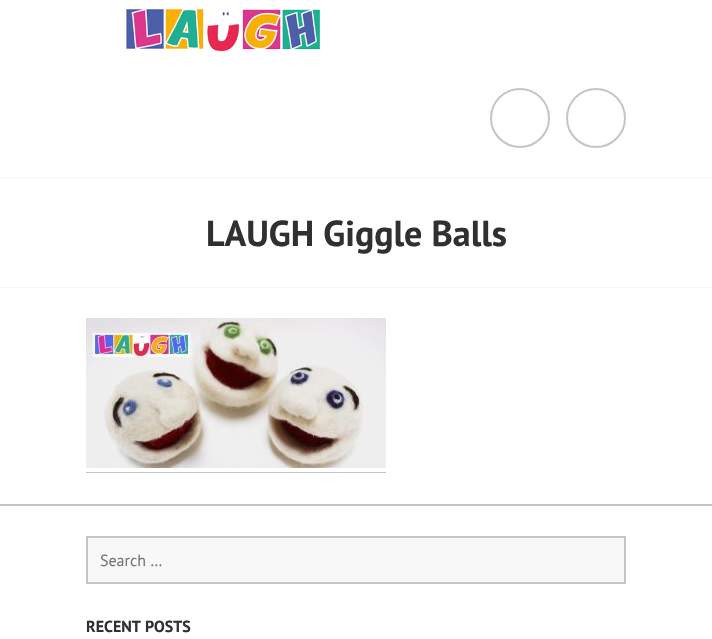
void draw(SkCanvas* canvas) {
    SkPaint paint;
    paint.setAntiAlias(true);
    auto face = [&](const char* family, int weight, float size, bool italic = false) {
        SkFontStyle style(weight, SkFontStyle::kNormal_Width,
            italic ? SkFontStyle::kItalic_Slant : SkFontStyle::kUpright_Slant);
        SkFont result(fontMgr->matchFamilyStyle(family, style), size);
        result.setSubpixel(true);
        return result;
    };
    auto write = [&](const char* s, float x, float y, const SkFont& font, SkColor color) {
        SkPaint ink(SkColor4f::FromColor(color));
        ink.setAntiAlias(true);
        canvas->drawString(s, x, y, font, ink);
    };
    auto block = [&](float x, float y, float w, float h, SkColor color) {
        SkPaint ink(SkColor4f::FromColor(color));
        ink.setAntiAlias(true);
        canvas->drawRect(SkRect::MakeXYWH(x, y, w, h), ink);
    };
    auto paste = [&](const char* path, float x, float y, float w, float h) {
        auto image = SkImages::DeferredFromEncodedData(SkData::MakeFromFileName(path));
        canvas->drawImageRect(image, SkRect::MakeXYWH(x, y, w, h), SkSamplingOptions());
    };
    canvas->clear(SK_ColorWHITE);
    block(0, 178, 712, 1, SkColorSetRGB(248, 248, 248));
    paste("pic1.png", 126, 8, 194, 44);
    paint.setStyle(SkPaint::kStroke_Style);
    paint.setStrokeWidth(2);
    paint.setColor(SkColorSetRGB(197, 197, 197));
    canvas->drawCircle(520, 118, 29, paint);
    canvas->drawCircle(596, 118, 29, paint);
    block(0, 287, 712, 1, SkColorSetRGB(248, 248, 248));
    auto kFont1 = face("PT Sans", 700, 36);
    write("LAUGH Giggle Balls", 206, 246, kFont1, SkColorSetRGB(48, 48, 48));
    paste("pic2.png", 86, 318, 300, 150);
    block(86, 472, 300, 1, SkColorSetRGB(197, 197, 197));
    block(0, 504, 712, 2, SkColorSetRGB(197, 197, 197));
    paint.setStyle(SkPaint::kFill_Style);
    paint.setColor(SkColorSetRGB(248, 248, 248));
    canvas->drawRect(SkRect::MakeXYWH(87, 537, 538, 46), paint);
    paint.setStyle(SkPaint::kStroke_Style);
    paint.setColor(SkColorSetRGB(197, 197, 197));
    canvas->drawRect(SkRect::MakeXYWH(87, 537, 538, 46), paint);
    auto kFont2 = face("PT Sans", 400, 16);
    write("Search …", 100, 566, kFont2, SkColorSetRGB(117, 117, 117));
    auto kFont3 = face("PT Sans", 700, 16);
    write("RECENT POSTS", 86, 632, kFont3, SkColorSetRGB(48, 48, 48));
}
